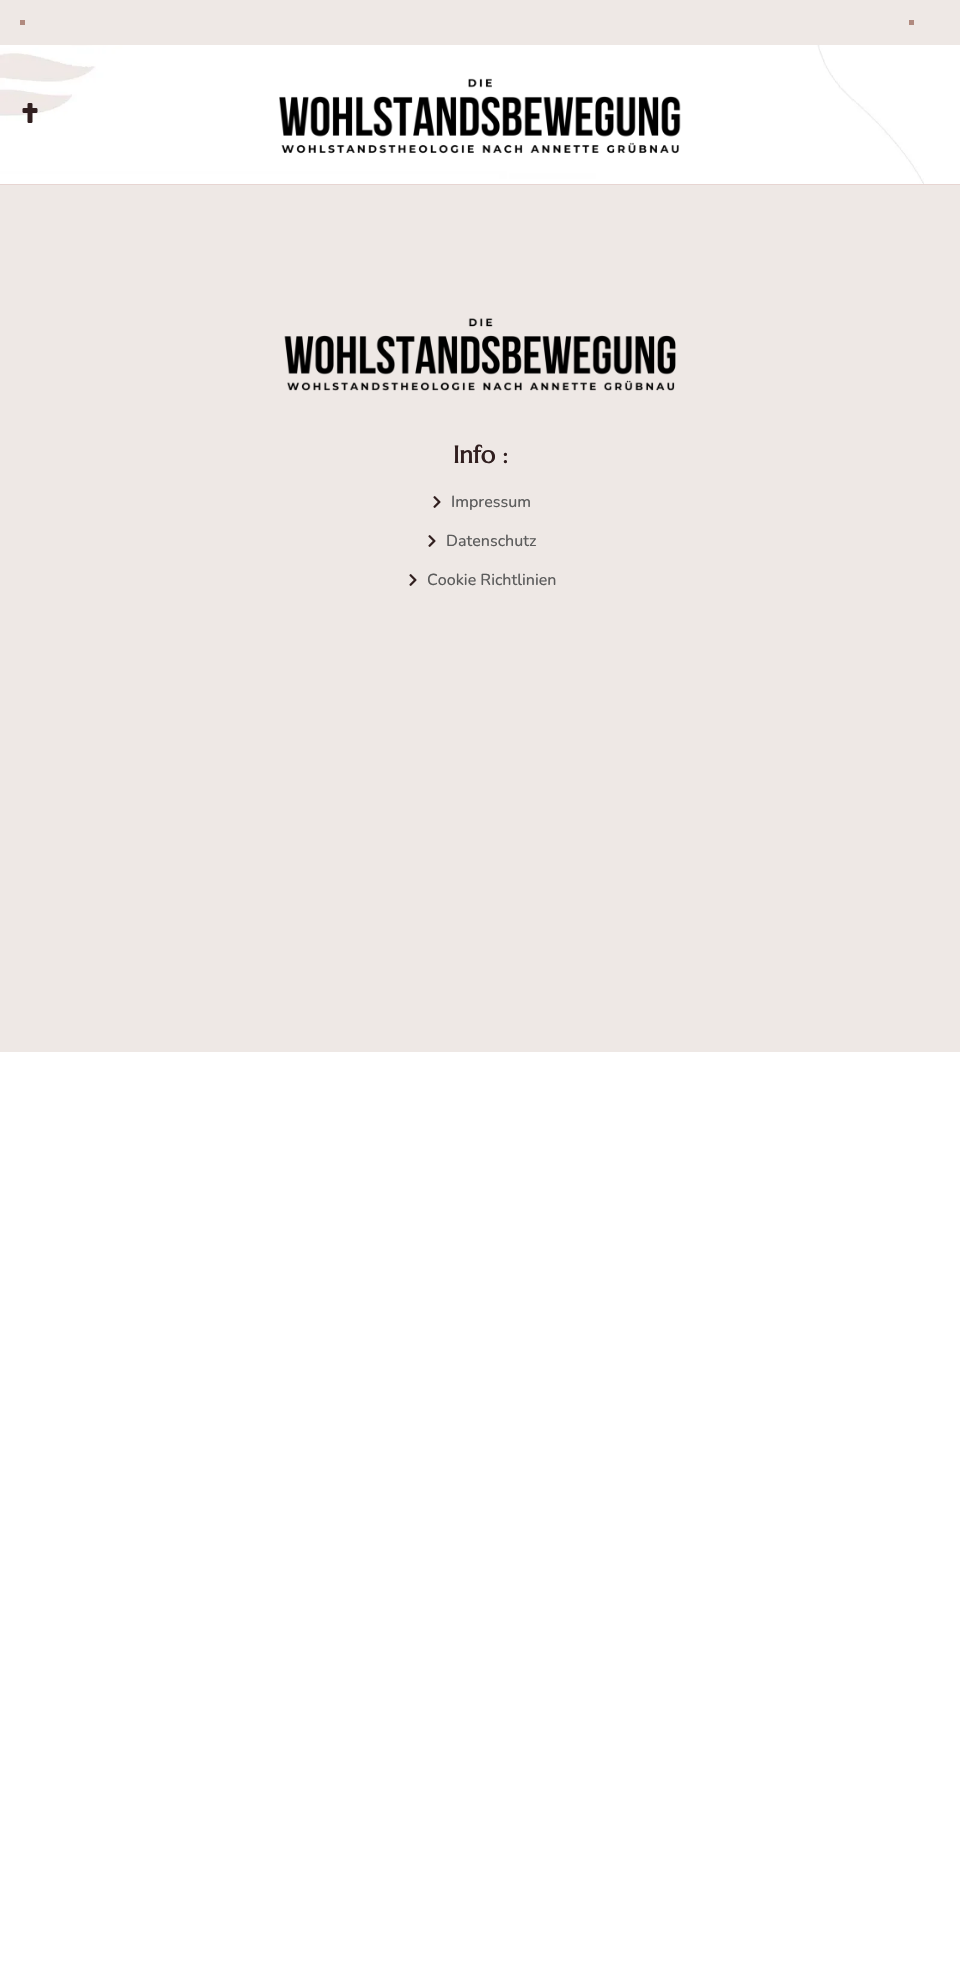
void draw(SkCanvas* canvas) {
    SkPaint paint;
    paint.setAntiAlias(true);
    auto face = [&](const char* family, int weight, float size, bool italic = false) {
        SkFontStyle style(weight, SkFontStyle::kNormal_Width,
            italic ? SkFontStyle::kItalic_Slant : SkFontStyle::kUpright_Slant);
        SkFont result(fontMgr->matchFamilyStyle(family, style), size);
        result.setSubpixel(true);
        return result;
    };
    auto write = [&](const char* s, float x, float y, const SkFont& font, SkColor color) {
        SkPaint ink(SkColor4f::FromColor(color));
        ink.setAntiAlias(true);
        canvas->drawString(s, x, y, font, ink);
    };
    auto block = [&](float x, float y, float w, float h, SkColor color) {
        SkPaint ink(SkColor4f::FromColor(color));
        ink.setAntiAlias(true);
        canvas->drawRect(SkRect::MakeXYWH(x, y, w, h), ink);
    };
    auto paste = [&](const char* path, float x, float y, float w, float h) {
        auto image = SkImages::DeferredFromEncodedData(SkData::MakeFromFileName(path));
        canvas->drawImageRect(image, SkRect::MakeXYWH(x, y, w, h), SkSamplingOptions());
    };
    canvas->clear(SK_ColorWHITE);
    block(0, 0, 960, 45, SkColorSetRGB(238, 232, 229));
    block(20, 20, 5, 5, SkColorSetRGB(176, 138, 127));
    block(909, 20, 5, 5, SkColorSetRGB(176, 138, 127));
    paste("pic1.png", 0, 45, 924, 139);
    paste("pic2.png", 22, 103, 16, 20);
    paste("pic3.png", 279, 78, 402, 76);
    block(0, 185, 960, 867, SkColorSetRGB(238, 232, 229));
    block(0, 184, 960, 1, SkColorSetRGB(231, 213, 210));
    paste("pic4.png", 284, 318, 392, 73);
    auto kFont1 = face("Marcellus", 700, 24);
    write("Info :", 453, 463, kFont1, SkColorSetRGB(49, 31, 31));
    paste("pic5.png", 433, 496, 8, 12);
    auto kFont2 = face("Nunito", 500, 16);
    write("Impressum", 451, 507, kFont2, SkColorSetRGB(92, 92, 92));
    paste("pic5.png", 428, 535, 8, 12);
    write("Datenschutz", 446, 546, kFont2, SkColorSetRGB(92, 92, 92));
    paste("pic5.png", 409, 574, 8, 12);
    write("Cookie Richtlinien", 427, 585, kFont2, SkColorSetRGB(92, 92, 92));
}
